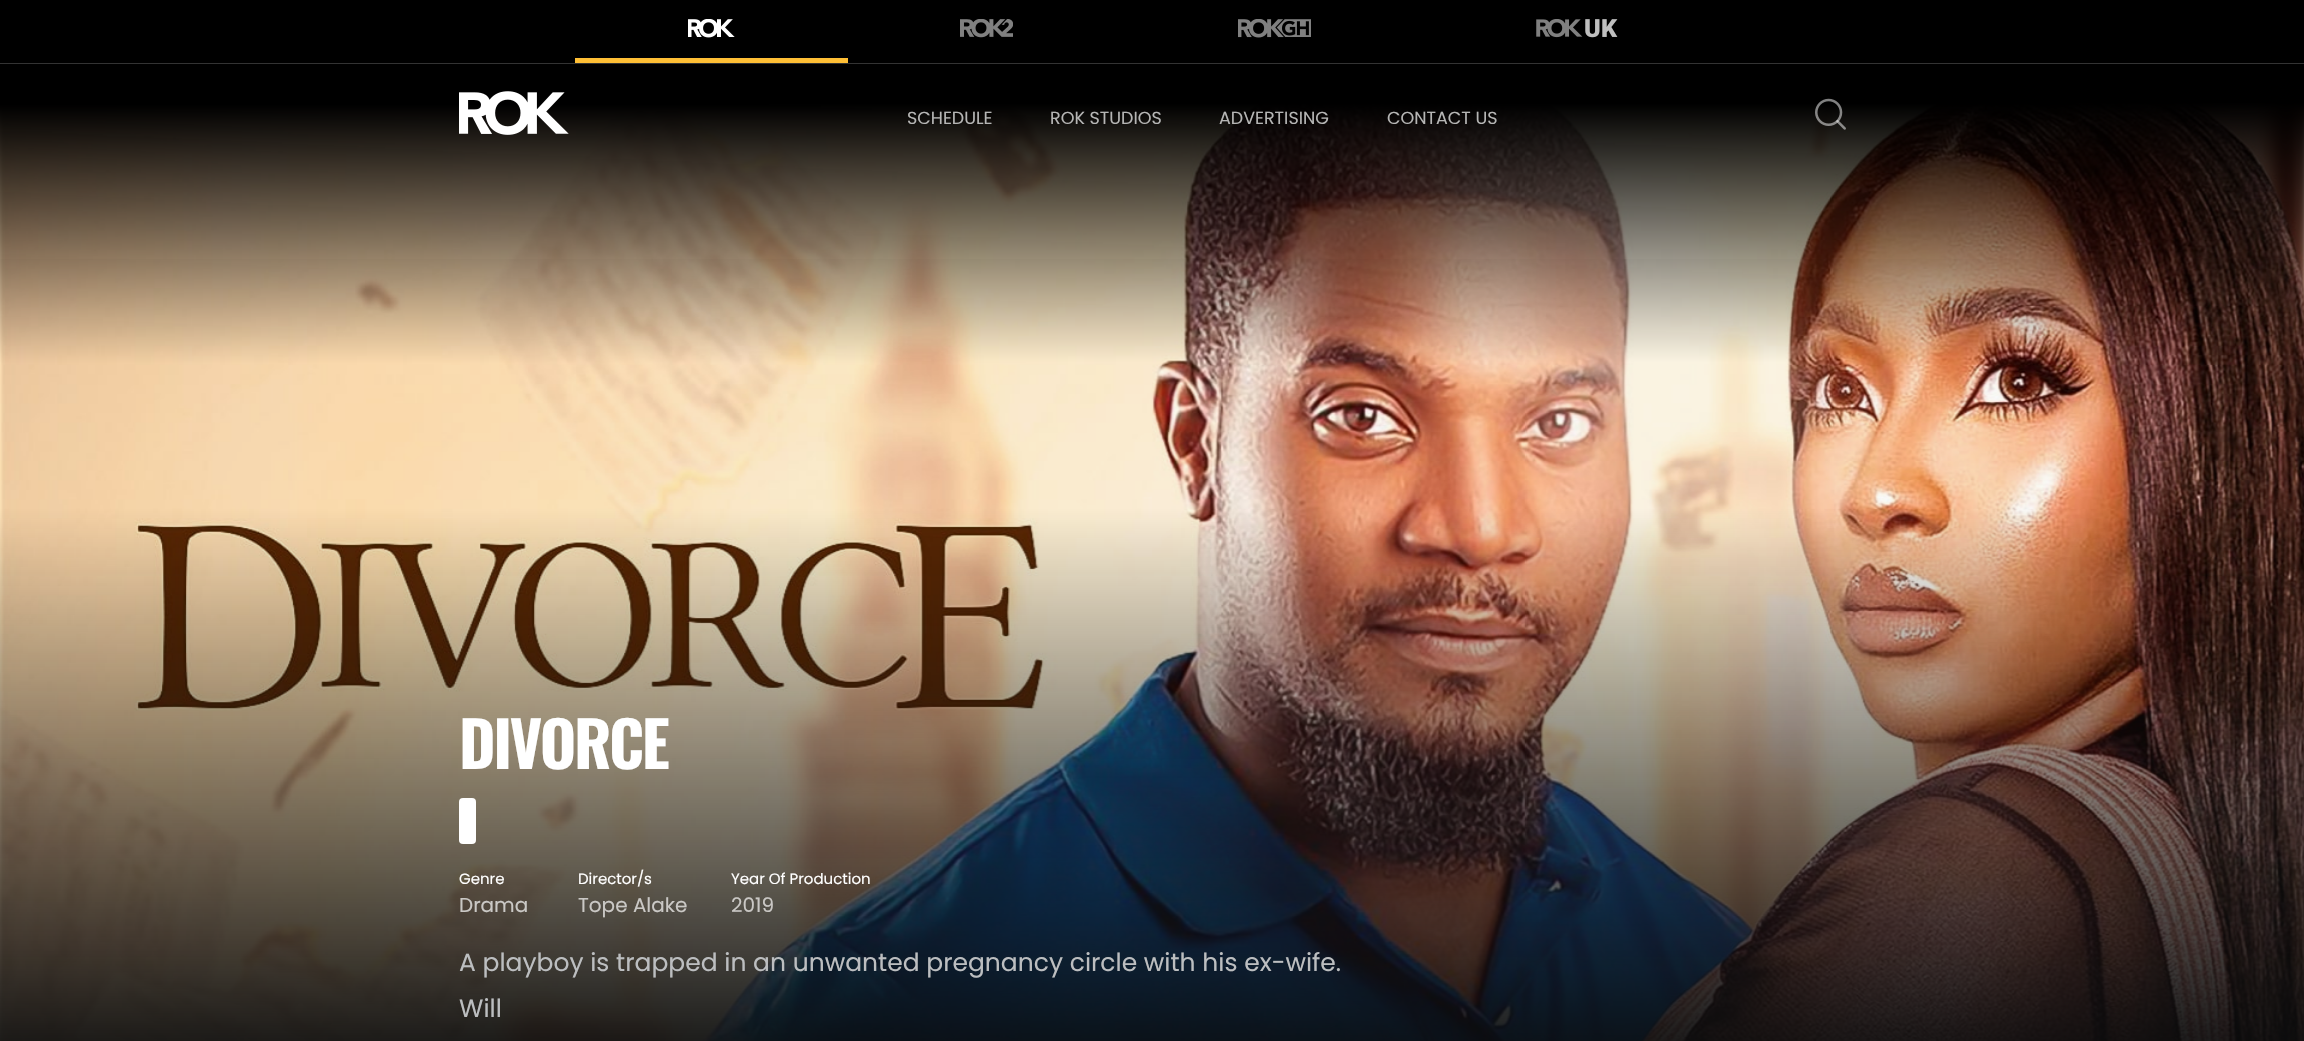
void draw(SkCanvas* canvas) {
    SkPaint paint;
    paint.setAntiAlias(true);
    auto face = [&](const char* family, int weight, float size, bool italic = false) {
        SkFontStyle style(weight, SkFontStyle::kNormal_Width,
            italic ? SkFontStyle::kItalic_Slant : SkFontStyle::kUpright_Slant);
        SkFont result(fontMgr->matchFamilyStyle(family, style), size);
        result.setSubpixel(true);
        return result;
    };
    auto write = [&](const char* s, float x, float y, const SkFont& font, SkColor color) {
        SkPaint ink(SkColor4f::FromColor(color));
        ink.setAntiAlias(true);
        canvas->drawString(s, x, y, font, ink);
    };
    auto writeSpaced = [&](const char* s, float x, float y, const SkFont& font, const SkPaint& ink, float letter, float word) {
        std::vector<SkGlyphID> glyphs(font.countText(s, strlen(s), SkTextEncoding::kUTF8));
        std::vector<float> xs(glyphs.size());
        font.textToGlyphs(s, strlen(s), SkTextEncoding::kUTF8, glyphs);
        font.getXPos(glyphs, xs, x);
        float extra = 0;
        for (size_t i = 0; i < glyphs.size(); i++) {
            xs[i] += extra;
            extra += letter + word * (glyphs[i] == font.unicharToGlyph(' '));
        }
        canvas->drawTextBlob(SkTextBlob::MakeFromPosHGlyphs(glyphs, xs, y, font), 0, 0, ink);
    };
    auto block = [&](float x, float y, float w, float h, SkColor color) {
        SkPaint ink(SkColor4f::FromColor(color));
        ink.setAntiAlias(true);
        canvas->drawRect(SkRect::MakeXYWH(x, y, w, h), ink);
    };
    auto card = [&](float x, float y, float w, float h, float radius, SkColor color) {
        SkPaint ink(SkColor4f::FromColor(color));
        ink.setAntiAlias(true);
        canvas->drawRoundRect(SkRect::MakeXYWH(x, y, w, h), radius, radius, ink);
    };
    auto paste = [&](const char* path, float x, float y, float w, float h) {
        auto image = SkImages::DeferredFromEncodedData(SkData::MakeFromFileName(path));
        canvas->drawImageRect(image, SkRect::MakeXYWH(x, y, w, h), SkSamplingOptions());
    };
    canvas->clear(SK_ColorWHITE);
    paste("pic7.png", 0, 0, 2304, 1041);
    block(0, 63, 2304, 1, SkColorSetRGB(51, 51, 51));
    block(575, 58, 273, 5, SkColorSetRGB(255, 191, 53));
    paste("pic1.png", 688, 19, 47, 19);
    paste("pic2.png", 960, 19, 53, 19);
    paste("pic3.png", 1238, 19, 73, 19);
    paste("pic4.png", 1536, 19, 82, 19);
    paste("pic5.png", 459, 91, 110, 44);
    auto kFont1 = face("Poppins", 400, 17.5f);
    write("SCHEDULE", 907, 124, kFont1, SkColorSetRGB(182, 182, 181));
    write("ROK STUDIOS", 1050, 124, kFont1, SkColorSetRGB(182, 182, 181));
    write("ADVERTISING", 1219, 124, kFont1, SkColorSetRGB(182, 182, 181));
    write("CONTACT US", 1387, 124, kFont1, SkColorSetRGB(182, 182, 181));
    paste("pic6.png", 1815, 98, 31, 32);
    auto kFont2 = face("Oswald", 700, 62.5f);
    paint.setColor(SK_ColorWHITE);
    writeSpaced("DIVORCE", 459, 769, kFont2, paint, -2.5f, 0);
    card(459, 798, 17, 46, 4, SK_ColorWHITE);
    auto kFont3 = face("Poppins", 400, 15);
    write("Genre", 459, 884, kFont3, SK_ColorWHITE);
    auto kFont4 = face("Poppins", 400, 20);
    write("Drama", 459, 912, kFont4, SkColorSetRGB(202, 200, 197));
    write("Director/s", 578, 884, kFont3, SK_ColorWHITE);
    write("Tope Alake", 578, 912, kFont4, SkColorSetRGB(202, 200, 197));
    write("Year Of Production", 731, 884, kFont3, SK_ColorWHITE);
    write("2019", 731, 912, kFont4, SkColorSetRGB(202, 200, 197));
    auto kFont5 = face("Poppins", 400, 25);
    write("A playboy is trapped in an unwanted pregnancy circle with his ex-wife.", 459, 971, kFont5, SkColorSetRGB(188, 190, 192));
    write("Will", 459, 1017, kFont5, SkColorSetRGB(188, 190, 192));
}
